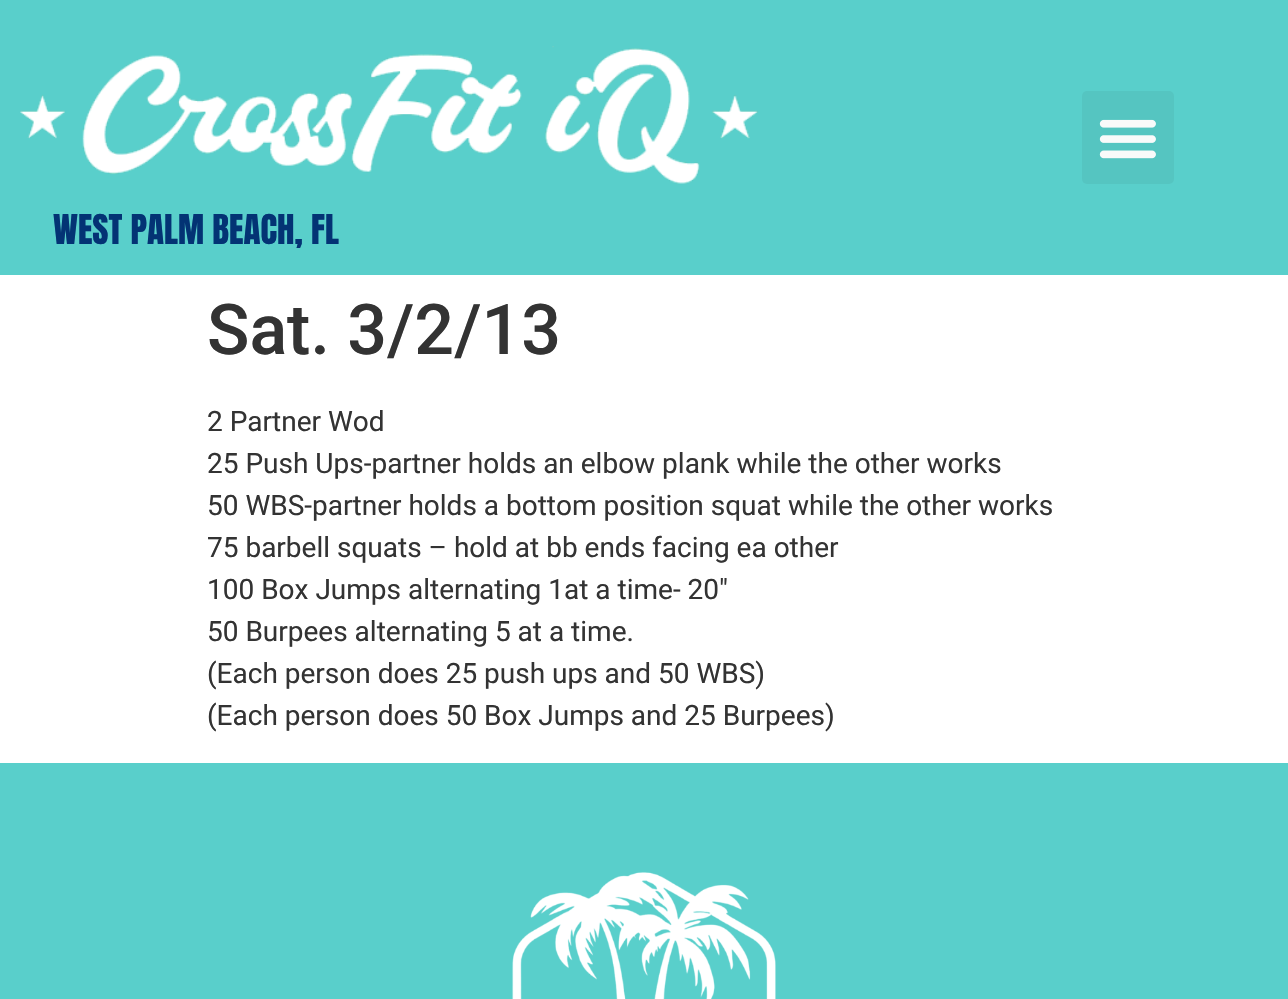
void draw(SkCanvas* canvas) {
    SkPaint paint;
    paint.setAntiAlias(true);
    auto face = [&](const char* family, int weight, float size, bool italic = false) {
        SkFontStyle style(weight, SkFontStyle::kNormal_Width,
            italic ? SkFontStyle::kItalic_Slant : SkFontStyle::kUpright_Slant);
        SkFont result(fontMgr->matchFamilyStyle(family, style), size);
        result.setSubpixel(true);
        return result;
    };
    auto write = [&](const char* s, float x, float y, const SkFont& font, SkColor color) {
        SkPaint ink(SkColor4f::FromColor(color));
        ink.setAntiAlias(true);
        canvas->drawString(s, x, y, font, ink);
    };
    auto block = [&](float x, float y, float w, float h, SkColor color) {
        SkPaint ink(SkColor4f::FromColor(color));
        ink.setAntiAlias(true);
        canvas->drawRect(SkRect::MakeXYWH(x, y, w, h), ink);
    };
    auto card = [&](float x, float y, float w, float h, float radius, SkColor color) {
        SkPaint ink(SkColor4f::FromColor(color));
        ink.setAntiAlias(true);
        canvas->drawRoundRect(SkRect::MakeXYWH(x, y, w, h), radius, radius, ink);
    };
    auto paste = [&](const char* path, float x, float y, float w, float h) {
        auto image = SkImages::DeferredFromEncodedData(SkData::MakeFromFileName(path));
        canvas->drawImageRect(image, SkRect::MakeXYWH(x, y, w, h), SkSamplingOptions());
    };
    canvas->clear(SK_ColorWHITE);
    block(0, 0, 1288, 275, SkColorSetRGB(89, 207, 203));
    card(1082, 91, 92, 93, 5, SkColorSetRGB(85, 197, 193));
    paste("pic1.png", 1099, 119, 57, 40);
    paste("pic2.png", 20, 46, 738, 138);
    auto kFont1 = face("Anton", 400, 35);
    write("WEST PALM BEACH, FL", 53, 244, kFont1, SkColorSetRGB(3, 51, 116));
    auto kFont2 = face("Roboto", 500, 70);
    write("Sat. 3/2/13", 207, 354, kFont2, SkColorSetRGB(51, 51, 51));
    auto kFont3 = face("Roboto", 400, 28);
    write("2 Partner Wod", 207, 431, kFont3, SkColorSetRGB(51, 51, 51));
    write("25 Push Ups-partner holds an elbow plank while the other works", 207, 473, kFont3, SkColorSetRGB(51, 51, 51));
    write("50 WBS-partner holds a bottom position squat while the other works", 207, 515, kFont3, SkColorSetRGB(51, 51, 51));
    write("75 barbell squats – hold at bb ends facing ea other", 207, 557, kFont3, SkColorSetRGB(51, 51, 51));
    write("100 Box Jumps alternating 1at a time- 20″", 207, 599, kFont3, SkColorSetRGB(51, 51, 51));
    write("50 Burpees alternating 5 at a time.", 207, 641, kFont3, SkColorSetRGB(51, 51, 51));
    write("(Each person does 25 push ups and 50 WBS)", 207, 683, kFont3, SkColorSetRGB(51, 51, 51));
    write("(Each person does 50 Box Jumps and 25 Burpees)", 207, 725, kFont3, SkColorSetRGB(51, 51, 51));
    block(0, 763, 1288, 236, SkColorSetRGB(89, 207, 203));
    paste("pic3.png", 512, 872, 264, 127);
}
